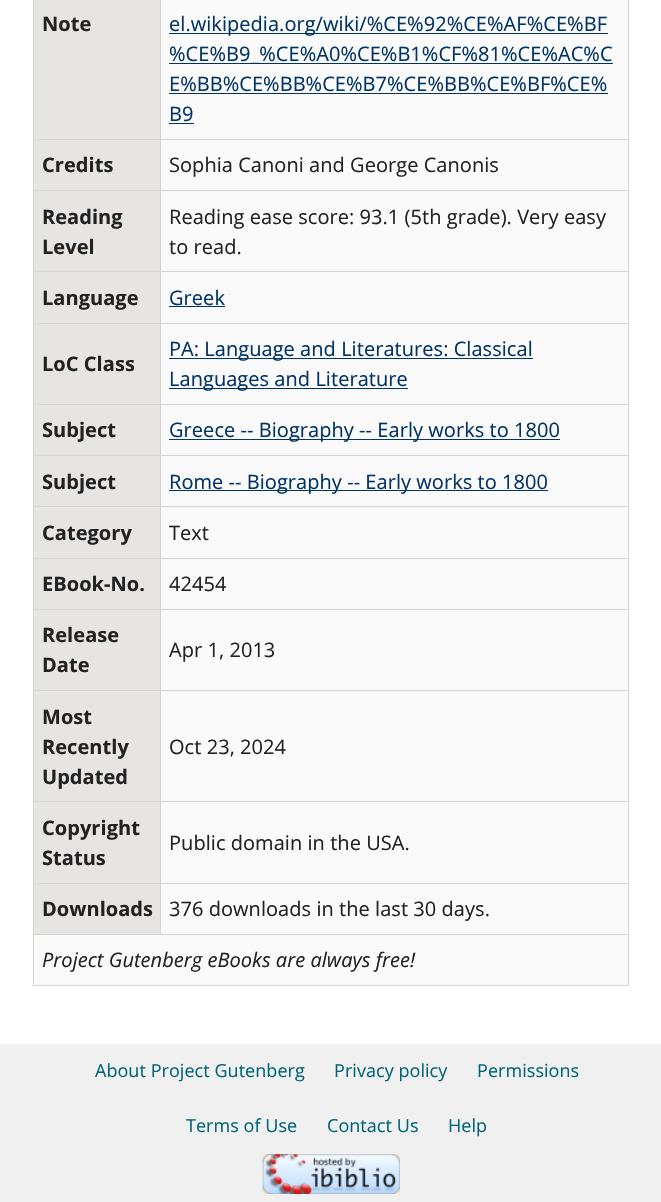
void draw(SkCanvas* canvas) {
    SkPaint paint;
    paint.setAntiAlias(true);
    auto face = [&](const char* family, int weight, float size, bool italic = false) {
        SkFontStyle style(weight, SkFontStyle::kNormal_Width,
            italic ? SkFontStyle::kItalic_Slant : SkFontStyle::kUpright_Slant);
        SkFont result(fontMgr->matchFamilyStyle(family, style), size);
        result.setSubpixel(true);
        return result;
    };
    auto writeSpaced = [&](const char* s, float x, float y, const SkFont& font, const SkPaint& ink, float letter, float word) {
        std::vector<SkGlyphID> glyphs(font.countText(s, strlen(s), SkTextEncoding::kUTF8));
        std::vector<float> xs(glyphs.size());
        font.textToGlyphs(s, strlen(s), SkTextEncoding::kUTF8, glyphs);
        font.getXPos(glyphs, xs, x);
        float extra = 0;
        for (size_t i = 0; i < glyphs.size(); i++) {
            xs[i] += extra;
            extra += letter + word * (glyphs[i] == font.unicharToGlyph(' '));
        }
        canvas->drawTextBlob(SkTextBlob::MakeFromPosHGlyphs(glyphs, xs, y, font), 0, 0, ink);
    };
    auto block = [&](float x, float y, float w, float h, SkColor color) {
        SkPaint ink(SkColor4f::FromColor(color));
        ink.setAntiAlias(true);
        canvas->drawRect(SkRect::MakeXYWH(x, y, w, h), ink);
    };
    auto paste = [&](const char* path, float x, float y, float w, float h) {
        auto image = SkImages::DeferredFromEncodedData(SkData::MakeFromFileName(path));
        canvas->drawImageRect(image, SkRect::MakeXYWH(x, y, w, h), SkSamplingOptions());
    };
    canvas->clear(SK_ColorWHITE);
    block(34, 0, 126, 139, SkColorSetRGB(231, 229, 228));
    auto kFont1 = face("Open Sans", 700, 20);
    paint.setColor(SkColorSetRGB(34, 34, 34));
    writeSpaced("Note", 42, 31, kFont1, paint, 0.05f, 0);
    block(161, 0, 467, 139, SkColorSetRGB(250, 250, 250));
    block(160, 139, 469, 1, SkColorSetRGB(214, 211, 209));
    block(160, 190, 469, 1, SkColorSetRGB(214, 211, 209));
    block(160, 271, 469, 1, SkColorSetRGB(214, 211, 209));
    block(160, 323, 469, 1, SkColorSetRGB(214, 211, 209));
    block(160, 404, 469, 1, SkColorSetRGB(214, 211, 209));
    block(160, 455, 469, 1, SkColorSetRGB(214, 211, 209));
    block(160, 506, 469, 1, SkColorSetRGB(214, 211, 209));
    block(160, 558, 469, 1, SkColorSetRGB(214, 211, 209));
    block(160, 609, 469, 1, SkColorSetRGB(214, 211, 209));
    block(160, 690, 469, 1, SkColorSetRGB(214, 211, 209));
    block(160, 801, 469, 1, SkColorSetRGB(214, 211, 209));
    block(160, 883, 469, 1, SkColorSetRGB(214, 211, 209));
    block(33, 934, 596, 1, SkColorSetRGB(214, 211, 209));
    block(160, 883, 1, 52, SkColorSetRGB(214, 211, 209));
    block(33, 883, 128, 1, SkColorSetRGB(214, 211, 209));
    block(160, 801, 1, 83, SkColorSetRGB(214, 211, 209));
    block(33, 801, 128, 1, SkColorSetRGB(214, 211, 209));
    block(160, 690, 1, 113, SkColorSetRGB(214, 211, 209));
    block(33, 690, 128, 1, SkColorSetRGB(214, 211, 209));
    block(160, 609, 1, 82, SkColorSetRGB(214, 211, 209));
    block(33, 609, 128, 1, SkColorSetRGB(214, 211, 209));
    block(160, 558, 1, 52, SkColorSetRGB(214, 211, 209));
    block(33, 558, 128, 1, SkColorSetRGB(214, 211, 209));
    block(160, 506, 1, 53, SkColorSetRGB(214, 211, 209));
    block(33, 506, 128, 1, SkColorSetRGB(214, 211, 209));
    block(160, 455, 1, 53, SkColorSetRGB(214, 211, 209));
    block(33, 455, 128, 1, SkColorSetRGB(214, 211, 209));
    block(160, 404, 1, 52, SkColorSetRGB(214, 211, 209));
    block(33, 404, 128, 1, SkColorSetRGB(214, 211, 209));
    block(160, 323, 1, 82, SkColorSetRGB(214, 211, 209));
    block(33, 323, 128, 1, SkColorSetRGB(214, 211, 209));
    block(160, 271, 1, 53, SkColorSetRGB(214, 211, 209));
    block(33, 271, 128, 1, SkColorSetRGB(214, 211, 209));
    block(160, 190, 1, 83, SkColorSetRGB(214, 211, 209));
    block(33, 190, 128, 1, SkColorSetRGB(214, 211, 209));
    block(160, 139, 1, 52, SkColorSetRGB(214, 211, 209));
    block(33, 139, 128, 1, SkColorSetRGB(214, 211, 209));
    block(160, 0, 1, 140, SkColorSetRGB(214, 211, 209));
    block(169, 33, 439, 1, SkColorSetRGB(0, 51, 102));
    auto kFont2 = face("Open Sans", 400, 20);
    paint.setColor(SkColorSetRGB(0, 51, 102));
    writeSpaced("el.wikipedia.org/wiki/%CE%92%CE%AF%CE%BF", 169, 31, kFont2, paint, 0.05f, 0);
    block(169, 63, 444, 1, SkColorSetRGB(0, 51, 102));
    writeSpaced("%CE%B9_%CE%A0%CE%B1%CF%81%CE%AC%C", 169, 61, kFont2, paint, 0.05f, 0);
    writeSpaced("E%BB%CE%BB%CE%B7%CE%BB%CE%BF%CE%", 169, 91, kFont2, paint, 0.05f, 0);
    block(169, 93, 439, 1, SkColorSetRGB(0, 51, 102));
    writeSpaced("B9", 169, 121, kFont2, paint, 0.05f, 0);
    block(169, 123, 25, 1, SkColorSetRGB(0, 51, 102));
    block(34, 140, 126, 50, SkColorSetRGB(231, 229, 228));
    block(628, 934, 1, 52, SkColorSetRGB(214, 211, 209));
    block(33, 985, 596, 1, SkColorSetRGB(214, 211, 209));
    block(33, 934, 1, 52, SkColorSetRGB(214, 211, 209));
    block(33, 883, 1, 52, SkColorSetRGB(214, 211, 209));
    block(33, 801, 1, 83, SkColorSetRGB(214, 211, 209));
    block(33, 690, 1, 113, SkColorSetRGB(214, 211, 209));
    block(33, 609, 1, 82, SkColorSetRGB(214, 211, 209));
    block(33, 558, 1, 52, SkColorSetRGB(214, 211, 209));
    block(33, 506, 1, 53, SkColorSetRGB(214, 211, 209));
    block(33, 455, 1, 53, SkColorSetRGB(214, 211, 209));
    block(33, 404, 1, 52, SkColorSetRGB(214, 211, 209));
    block(33, 323, 1, 82, SkColorSetRGB(214, 211, 209));
    block(33, 271, 1, 53, SkColorSetRGB(214, 211, 209));
    block(33, 190, 1, 83, SkColorSetRGB(214, 211, 209));
    block(33, 0, 1, 191, SkColorSetRGB(214, 211, 209));
    paint.setColor(SkColorSetRGB(34, 34, 34));
    writeSpaced("Credits", 42, 172, kFont1, paint, 0.05f, 0);
    block(161, 140, 467, 50, SkColorSetRGB(250, 250, 250));
    block(628, 883, 1, 52, SkColorSetRGB(214, 211, 209));
    block(628, 801, 1, 83, SkColorSetRGB(214, 211, 209));
    block(628, 690, 1, 113, SkColorSetRGB(214, 211, 209));
    block(628, 609, 1, 82, SkColorSetRGB(214, 211, 209));
    block(628, 558, 1, 52, SkColorSetRGB(214, 211, 209));
    block(628, 506, 1, 53, SkColorSetRGB(214, 211, 209));
    block(628, 455, 1, 53, SkColorSetRGB(214, 211, 209));
    block(628, 404, 1, 52, SkColorSetRGB(214, 211, 209));
    block(628, 323, 1, 82, SkColorSetRGB(214, 211, 209));
    block(628, 271, 1, 53, SkColorSetRGB(214, 211, 209));
    block(628, 190, 1, 83, SkColorSetRGB(214, 211, 209));
    block(628, 0, 1, 191, SkColorSetRGB(214, 211, 209));
    writeSpaced("Sophia Canoni and George Canonis", 169, 172, kFont2, paint, 0.05f, 0);
    block(34, 191, 126, 80, SkColorSetRGB(231, 229, 228));
    writeSpaced("Reading", 42, 224, kFont1, paint, 0.05f, 0);
    writeSpaced("Level", 42, 254, kFont1, paint, 0.05f, 0);
    block(161, 191, 467, 80, SkColorSetRGB(250, 250, 250));
    writeSpaced("Reading ease score: 93.1 (5th grade). Very easy", 169, 224, kFont2, paint, 0.05f, 0);
    writeSpaced("to read.", 169, 254, kFont2, paint, 0.05f, 0);
    block(34, 272, 126, 51, SkColorSetRGB(231, 229, 228));
    writeSpaced("Language", 42, 305, kFont1, paint, 0.05f, 0);
    block(161, 272, 467, 51, SkColorSetRGB(250, 250, 250));
    paint.setColor(SkColorSetRGB(0, 51, 102));
    writeSpaced("Greek", 169, 305, kFont2, paint, 0.05f, 0);
    block(169, 306, 56, 1, SkColorSetRGB(0, 51, 102));
    block(34, 324, 126, 80, SkColorSetRGB(231, 229, 228));
    paint.setColor(SkColorSetRGB(34, 34, 34));
    writeSpaced("LoC Class", 42, 371, kFont1, paint, 0.05f, 0);
    block(161, 324, 467, 80, SkColorSetRGB(250, 250, 250));
    block(169, 358, 364, 1, SkColorSetRGB(0, 51, 102));
    paint.setColor(SkColorSetRGB(0, 51, 102));
    writeSpaced("PA: Language and Literatures: Classical", 169, 356, kFont2, paint, 0.05f, 0);
    block(169, 388, 239, 1, SkColorSetRGB(0, 51, 102));
    writeSpaced("Languages and Literature", 169, 386, kFont2, paint, 0.05f, 0);
    block(34, 405, 126, 50, SkColorSetRGB(231, 229, 228));
    paint.setColor(SkColorSetRGB(34, 34, 34));
    writeSpaced("Subject", 42, 437, kFont1, paint, 0.05f, 0);
    block(161, 405, 467, 50, SkColorSetRGB(250, 250, 250));
    block(169, 439, 391, 1, SkColorSetRGB(0, 51, 102));
    paint.setColor(SkColorSetRGB(0, 51, 102));
    writeSpaced("Greece -- Biography -- Early works to 1800", 169, 437, kFont2, paint, 0.05f, 0);
    block(34, 456, 126, 50, SkColorSetRGB(231, 229, 228));
    paint.setColor(SkColorSetRGB(34, 34, 34));
    writeSpaced("Subject", 42, 489, kFont1, paint, 0.05f, 0);
    block(161, 456, 467, 50, SkColorSetRGB(250, 250, 250));
    block(169, 490, 379, 1, SkColorSetRGB(0, 51, 102));
    paint.setColor(SkColorSetRGB(0, 51, 102));
    writeSpaced("Rome -- Biography -- Early works to 1800", 169, 489, kFont2, paint, 0.05f, 0);
    block(34, 507, 126, 51, SkColorSetRGB(231, 229, 228));
    paint.setColor(SkColorSetRGB(34, 34, 34));
    writeSpaced("Category", 42, 540, kFont1, paint, 0.05f, 0);
    block(161, 507, 467, 51, SkColorSetRGB(250, 250, 250));
    writeSpaced("Text", 169, 540, kFont2, paint, 0.05f, 0);
    block(34, 559, 126, 50, SkColorSetRGB(231, 229, 228));
    writeSpaced("EBook-No.", 42, 591, kFont1, paint, 0.05f, 0);
    block(161, 559, 467, 50, SkColorSetRGB(250, 250, 250));
    writeSpaced("42454", 169, 591, kFont2, paint, 0.05f, 0);
    block(34, 610, 126, 80, SkColorSetRGB(231, 229, 228));
    writeSpaced("Release", 42, 642, kFont1, paint, 0.05f, 0);
    writeSpaced("Date", 42, 672, kFont1, paint, 0.05f, 0);
    block(161, 610, 467, 80, SkColorSetRGB(250, 250, 250));
    writeSpaced("Apr 1, 2013", 169, 657, kFont2, paint, 0.05f, 0);
    block(34, 691, 126, 110, SkColorSetRGB(231, 229, 228));
    writeSpaced("Most", 42, 724, kFont1, paint, 0.05f, 0);
    writeSpaced("Recently", 42, 754, kFont1, paint, 0.05f, 0);
    writeSpaced("Updated", 42, 784, kFont1, paint, 0.05f, 0);
    block(161, 691, 467, 110, SkColorSetRGB(250, 250, 250));
    writeSpaced("Oct 23, 2024", 169, 754, kFont2, paint, 0.05f, 0);
    block(34, 802, 126, 81, SkColorSetRGB(231, 229, 228));
    writeSpaced("Copyright", 42, 835, kFont1, paint, 0.05f, 0);
    writeSpaced("Status", 42, 865, kFont1, paint, 0.05f, 0);
    block(161, 802, 467, 81, SkColorSetRGB(250, 250, 250));
    writeSpaced("Public domain in the USA.", 169, 850, kFont2, paint, 0.05f, 0);
    block(34, 884, 126, 50, SkColorSetRGB(231, 229, 228));
    writeSpaced("Downloads", 42, 916, kFont1, paint, 0.05f, 0);
    block(161, 884, 467, 50, SkColorSetRGB(250, 250, 250));
    writeSpaced("376 downloads in the last 30 days.", 169, 916, kFont2, paint, 0.05f, 0);
    block(34, 935, 594, 50, SkColorSetRGB(250, 250, 250));
    auto kFont3 = face("Open Sans", 400, 20, true);
    writeSpaced("Project Gutenberg eBooks are always free!", 42, 967, kFont3, paint, 0.05f, 0);
    block(0, 1044, 661, 158, SkColorSetRGB(240, 240, 240));
    auto kFont4 = face("Open Sans", 400, 18);
    paint.setColor(SkColorSetRGB(0, 100, 121));
    writeSpaced("About Project Gutenberg", 95, 1077, kFont4, paint, 0.05f, 0);
    writeSpaced("Privacy policy", 334, 1077, kFont4, paint, 0.05f, 0);
    writeSpaced("Permissions", 477, 1077, kFont4, paint, 0.05f, 0);
    writeSpaced("Terms of Use", 186, 1132, kFont4, paint, 0.05f, 0);
    writeSpaced("Contact Us", 327, 1132, kFont4, paint, 0.05f, 0);
    writeSpaced("Help", 448, 1132, kFont4, paint, 0.05f, 0);
    paste("pic1.png", 262, 1154, 138, 40);
}
